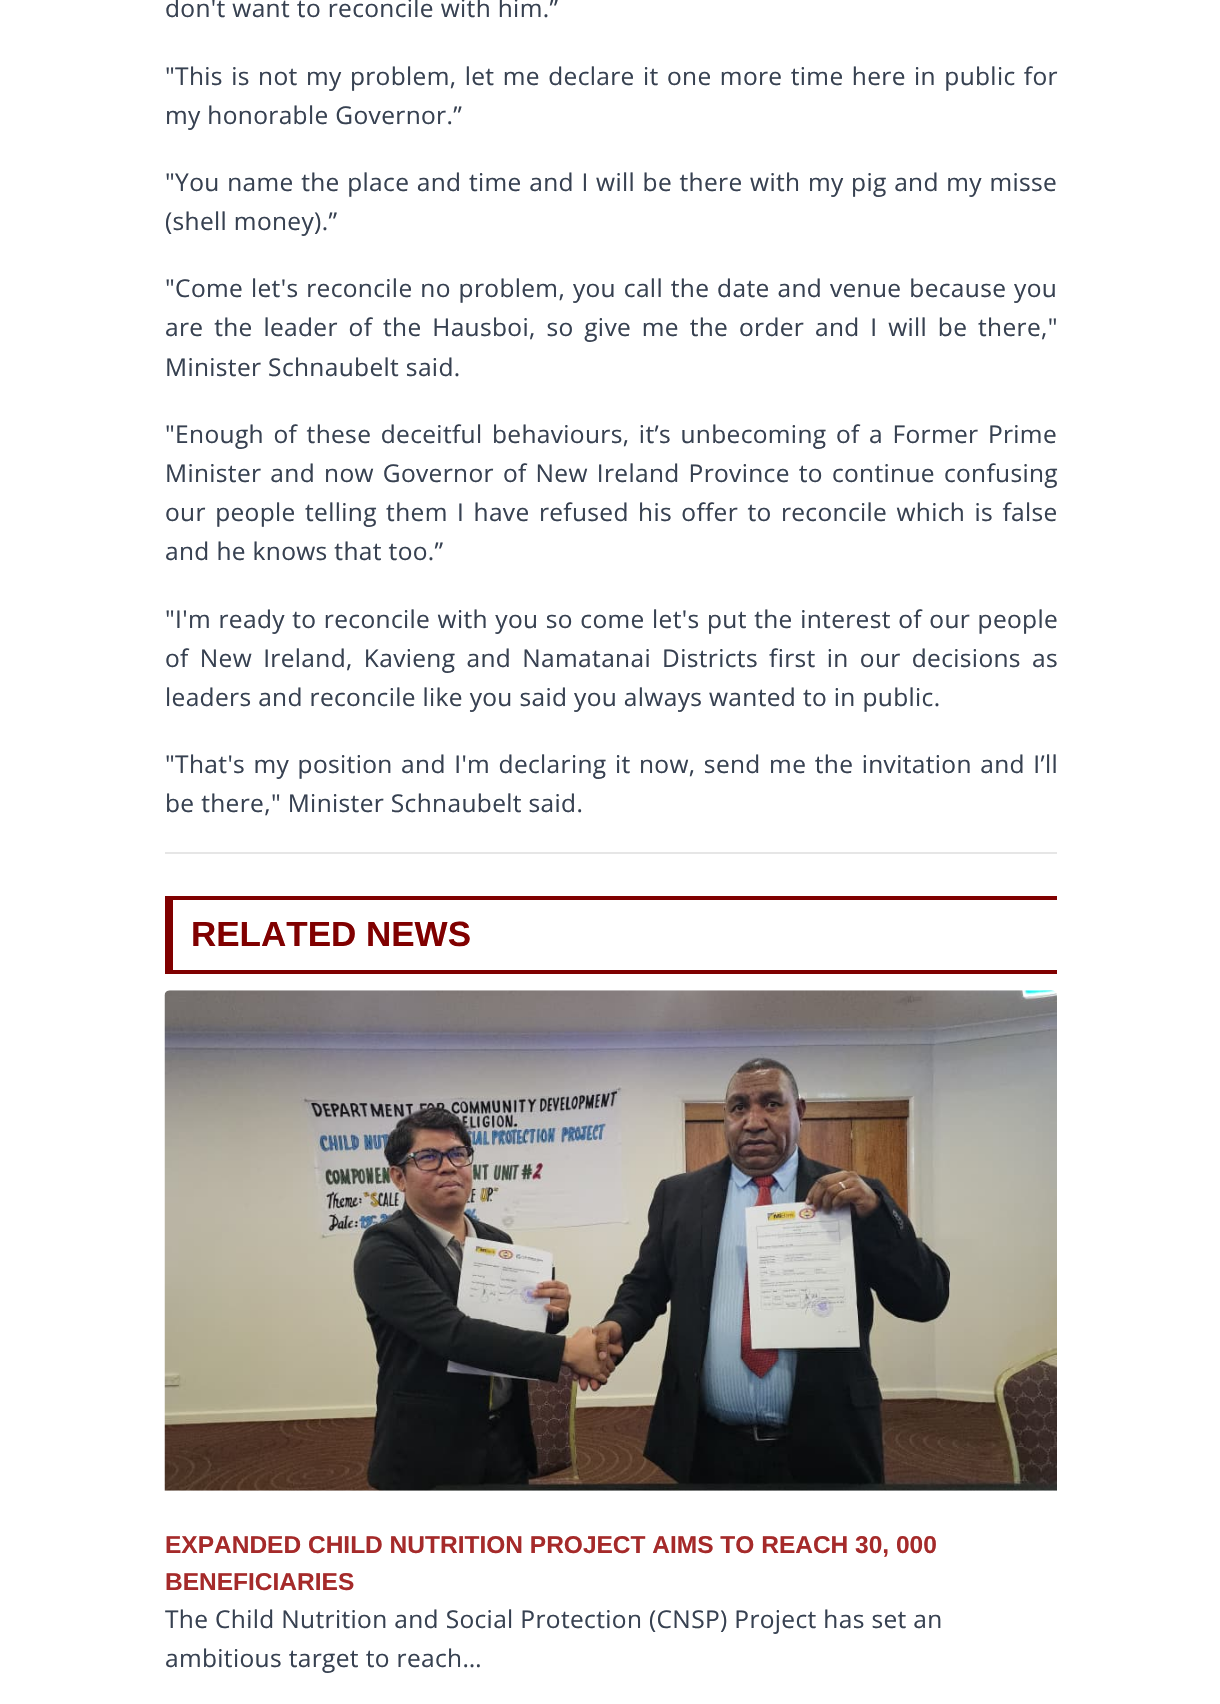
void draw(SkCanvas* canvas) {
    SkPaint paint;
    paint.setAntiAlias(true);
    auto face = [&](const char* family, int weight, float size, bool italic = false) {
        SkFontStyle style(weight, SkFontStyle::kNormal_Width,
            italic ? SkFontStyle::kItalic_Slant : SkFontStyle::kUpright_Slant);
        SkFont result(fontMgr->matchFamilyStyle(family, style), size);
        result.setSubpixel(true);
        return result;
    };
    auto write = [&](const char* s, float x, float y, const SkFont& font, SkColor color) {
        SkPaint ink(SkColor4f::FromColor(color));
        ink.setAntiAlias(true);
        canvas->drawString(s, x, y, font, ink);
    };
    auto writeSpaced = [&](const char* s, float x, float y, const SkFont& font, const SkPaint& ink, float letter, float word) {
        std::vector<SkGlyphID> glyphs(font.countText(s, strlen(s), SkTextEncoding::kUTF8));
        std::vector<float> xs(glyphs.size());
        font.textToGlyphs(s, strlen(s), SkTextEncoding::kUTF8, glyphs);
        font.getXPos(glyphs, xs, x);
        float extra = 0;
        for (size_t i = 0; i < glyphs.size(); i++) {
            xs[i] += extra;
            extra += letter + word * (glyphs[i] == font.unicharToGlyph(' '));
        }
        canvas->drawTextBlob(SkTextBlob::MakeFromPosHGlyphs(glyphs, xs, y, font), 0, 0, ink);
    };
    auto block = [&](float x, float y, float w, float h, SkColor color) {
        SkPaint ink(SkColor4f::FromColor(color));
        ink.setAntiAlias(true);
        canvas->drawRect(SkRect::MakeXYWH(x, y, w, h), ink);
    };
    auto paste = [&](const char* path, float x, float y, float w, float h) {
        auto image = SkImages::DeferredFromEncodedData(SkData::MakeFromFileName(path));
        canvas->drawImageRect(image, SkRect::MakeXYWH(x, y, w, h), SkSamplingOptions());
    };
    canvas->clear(SK_ColorWHITE);
    auto kFont1 = face("Open Sans", 400, 24.5f);
    paint.setColor(SkColorSetRGB(55, 65, 81));
    writeSpaced("don't want to reconcile with him.”", 165, 17, kFont1, paint, 0.35f, 0);
    writeSpaced("\"This is not my problem, let me declare it one more time here in public for", 165, 85, kFont1, paint, 0.35f, 1.6f);
    writeSpaced("my honorable Governor.”", 165, 124, kFont1, paint, 0.35f, 0);
    writeSpaced("\"You name the place and time and I will be there with my pig and my misse", 165, 191, kFont1, paint, 0.35f, 0.8f);
    writeSpaced("(shell money).”", 165, 230, kFont1, paint, 0.35f, 0);
    writeSpaced("\"Come let's reconcile no problem, you call the date and venue because you", 165, 297, kFont1, paint, 0.35f, 1.1f);
    writeSpaced("are the leader of the Hausboi, so give me the order and I will be there,\"", 165, 336, kFont1, paint, 0.35f, 4);
    writeSpaced("Minister Schnaubelt said.", 165, 376, kFont1, paint, 0.35f, 0);
    writeSpaced("\"Enough of these deceitful behaviours, it’s unbecoming of a Former Prime", 165, 443, kFont1, paint, 0.35f, 2.75f);
    writeSpaced("Minister and now Governor of New Ireland Province to continue confusing", 165, 482, kFont1, paint, 0.35f, 2.25f);
    writeSpaced("our people telling them I have refused his offer to reconcile which is false", 165, 521, kFont1, paint, 0.35f, 2.6f);
    writeSpaced("and he knows that too.”", 165, 560, kFont1, paint, 0.35f, 0);
    writeSpaced("\"I'm ready to reconcile with you so come let's put the interest of our people", 165, 628, kFont1, paint, 0.35f, 0.7f);
    writeSpaced("of New Ireland, Kavieng and Namatanai Districts first in our decisions as", 165, 667, kFont1, paint, 0.35f, 4.4f);
    writeSpaced("leaders and reconcile like you said you always wanted to in public.", 165, 706, kFont1, paint, 0.35f, 0);
    writeSpaced("\"That's my position and I'm declaring it now, send me the invitation and I’ll", 165, 773, kFont1, paint, 0.35f, 1.7f);
    writeSpaced("be there,\" Minister Schnaubelt said.", 165, 812, kFont1, paint, 0.35f, 0);
    block(165, 852, 892, 2, SkColorSetRGB(230, 230, 230));
    block(165, 896, 892, 4, SkColorSetRGB(128, 0, 0));
    block(165, 970, 892, 4, SkColorSetRGB(128, 0, 0));
    block(165, 896, 8, 77, SkColorSetRGB(128, 0, 0));
    auto kFont2 = face("Liberation Sans", 700, 35);
    write("RELATED NEWS", 191, 946, kFont2, SkColorSetRGB(128, 0, 0));
    paste("pic1.png", 164, 990, 893, 501);
    auto kFont3 = face("Liberation Sans", 700, 24.5f);
    write("EXPANDED CHILD NUTRITION PROJECT AIMS TO REACH 30, 000", 165, 1553, kFont3, SkColorSetRGB(165, 42, 42));
    write("BENEFICIARIES", 165, 1590, kFont3, SkColorSetRGB(165, 42, 42));
    writeSpaced("The Child Nutrition and Social Protection (CNSP) Project has set an", 165, 1628, kFont1, paint, 0.35f, 0);
    writeSpaced("ambitious target to reach…", 165, 1667, kFont1, paint, 0.35f, 0);
}
